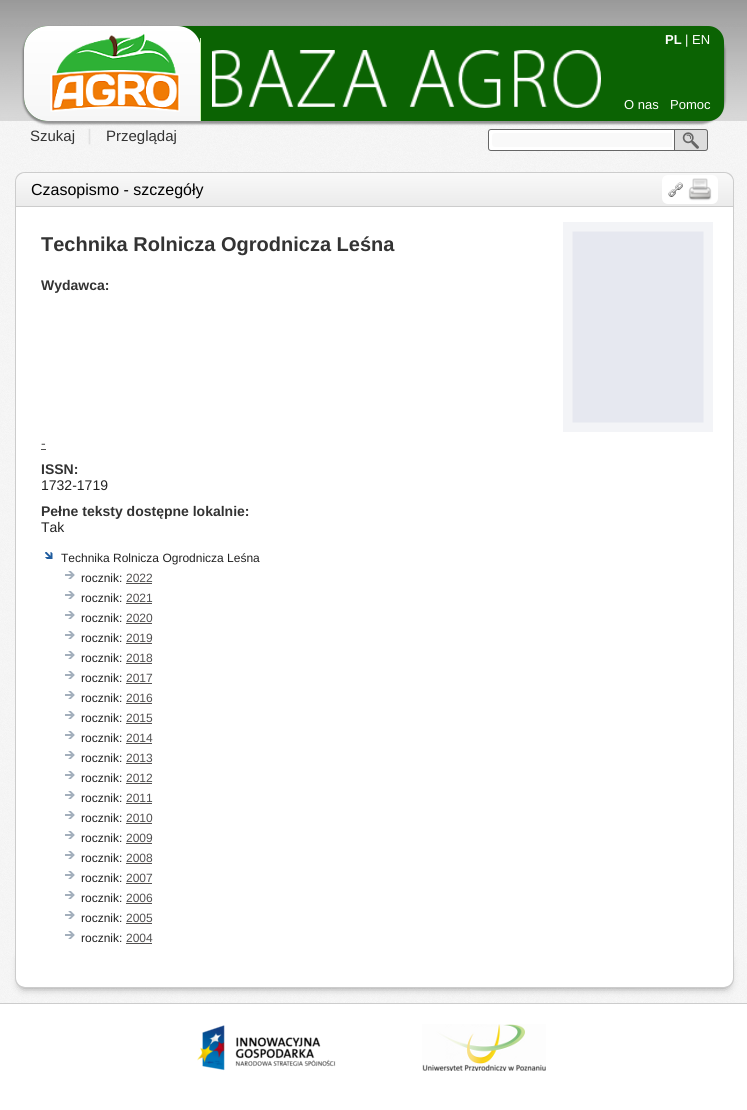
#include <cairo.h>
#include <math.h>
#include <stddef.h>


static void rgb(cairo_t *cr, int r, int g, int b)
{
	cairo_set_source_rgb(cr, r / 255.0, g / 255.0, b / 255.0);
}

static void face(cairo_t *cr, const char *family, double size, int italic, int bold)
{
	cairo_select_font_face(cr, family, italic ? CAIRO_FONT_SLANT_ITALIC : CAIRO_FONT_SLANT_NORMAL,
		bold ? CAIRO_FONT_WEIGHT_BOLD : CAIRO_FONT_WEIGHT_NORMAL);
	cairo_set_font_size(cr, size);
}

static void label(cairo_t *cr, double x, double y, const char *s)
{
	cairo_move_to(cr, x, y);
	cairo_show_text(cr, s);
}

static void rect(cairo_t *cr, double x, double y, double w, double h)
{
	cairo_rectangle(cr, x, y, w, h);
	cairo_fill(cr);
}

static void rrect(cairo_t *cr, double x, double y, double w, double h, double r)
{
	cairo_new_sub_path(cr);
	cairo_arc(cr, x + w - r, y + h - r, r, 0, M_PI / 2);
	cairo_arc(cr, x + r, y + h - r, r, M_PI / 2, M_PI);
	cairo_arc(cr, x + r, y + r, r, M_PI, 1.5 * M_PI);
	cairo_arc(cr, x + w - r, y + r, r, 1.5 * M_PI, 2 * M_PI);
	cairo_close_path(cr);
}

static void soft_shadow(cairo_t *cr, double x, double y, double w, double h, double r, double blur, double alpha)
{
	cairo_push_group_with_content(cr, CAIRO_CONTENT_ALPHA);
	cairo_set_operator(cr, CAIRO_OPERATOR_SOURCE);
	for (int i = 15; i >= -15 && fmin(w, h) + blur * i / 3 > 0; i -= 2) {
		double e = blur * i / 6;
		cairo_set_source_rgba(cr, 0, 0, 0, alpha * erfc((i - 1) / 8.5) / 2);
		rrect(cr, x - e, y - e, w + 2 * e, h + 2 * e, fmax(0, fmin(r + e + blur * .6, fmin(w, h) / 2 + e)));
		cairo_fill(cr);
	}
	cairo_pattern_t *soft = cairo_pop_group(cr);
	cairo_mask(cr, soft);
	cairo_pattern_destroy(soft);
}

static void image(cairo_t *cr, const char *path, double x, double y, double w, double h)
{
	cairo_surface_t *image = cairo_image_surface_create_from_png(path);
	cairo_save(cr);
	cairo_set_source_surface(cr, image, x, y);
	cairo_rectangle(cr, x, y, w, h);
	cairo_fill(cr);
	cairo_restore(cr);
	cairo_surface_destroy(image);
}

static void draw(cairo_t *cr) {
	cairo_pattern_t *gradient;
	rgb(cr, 255, 255, 255);
	cairo_paint(cr);
	image(cr, "image0.png", 0, 0, 747, 1003);
	image(cr, "image3.png", 0, 121, 747, 31);
	rgb(cr, 50, 50, 50);
	soft_shadow(cr, 23, 27, 702, 97, 25, 1, 0.5);
	cairo_save(cr);
	cairo_new_path(cr);
	cairo_move_to(cr, 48, 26);
	cairo_line_to(cr, 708, 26);
	cairo_curve_to(cr, 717, 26, 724, 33, 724, 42);
	cairo_line_to(cr, 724, 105);
	cairo_curve_to(cr, 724, 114, 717, 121, 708, 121);
	cairo_line_to(cr, 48, 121);
	cairo_curve_to(cr, 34.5, 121, 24, 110.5, 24, 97);
	cairo_line_to(cr, 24, 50);
	cairo_curve_to(cr, 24, 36.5, 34.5, 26, 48, 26);
	cairo_close_path(cr);
	cairo_clip(cr);
	soft_shadow(cr, 23, 27, 702, 97, 25, 1, 0.5);
	cairo_restore(cr);
	rgb(cr, 11, 99, 3);
	cairo_new_path(cr);
	cairo_move_to(cr, 48, 26);
	cairo_line_to(cr, 708, 26);
	cairo_curve_to(cr, 717, 26, 724, 33, 724, 42);
	cairo_line_to(cr, 724, 105);
	cairo_curve_to(cr, 724, 114, 717, 121, 708, 121);
	cairo_line_to(cr, 48, 121);
	cairo_curve_to(cr, 34.5, 121, 24, 110.5, 24, 97);
	cairo_line_to(cr, 24, 50);
	cairo_curve_to(cr, 24, 36.5, 34.5, 26, 48, 26);
	cairo_close_path(cr);
	cairo_fill(cr);
	gradient = cairo_pattern_create_linear(112, 26, 112, 121);
	cairo_pattern_add_color_stop_rgba(gradient, 0, 1, 1, 1, 1);
	cairo_pattern_add_color_stop_rgba(gradient, 1, 0.965, 0.965, 0.965, 1);
	cairo_set_source(cr, gradient);
	cairo_pattern_destroy(gradient);
	cairo_new_path(cr);
	cairo_move_to(cr, 48, 26);
	cairo_line_to(cr, 177, 26);
	cairo_curve_to(cr, 190.5, 26, 201, 36.5, 201, 50);
	cairo_line_to(cr, 201, 121);
	cairo_line_to(cr, 48, 121);
	cairo_curve_to(cr, 34.5, 121, 24, 110.5, 24, 97);
	cairo_line_to(cr, 24, 50);
	cairo_curve_to(cr, 24, 36.5, 34.5, 26, 48, 26);
	cairo_close_path(cr);
	cairo_fill(cr);
	rgb(cr, 203, 246, 179);
	rect(cr, 200, 38, 1, 83);
	image(cr, "image1.png", 50, 33, 130, 79);
	face(cr, "Liberation Sans", 13, 0, 1);
	rgb(cr, 255, 255, 255);
	label(cr, 665, 44, "PL");
	face(cr, "Liberation Sans", 13, 0, 0);
	label(cr, 685, 44, "| EN");
	image(cr, "image2.png", 212, 50, 389, 58);
	label(cr, 624, 109, "O nas");
	label(cr, 670, 109, "Pomoc");
	face(cr, "Liberation Sans", 15, 0, 0);
	rgb(cr, 51, 51, 51);
	label(cr, 30, 141, "Szukaj");
	rgb(cr, 100, 100, 100);
	soft_shadow(cr, 89, 129, 1, 15, 0, 0.5, 0.2);
	rgb(cr, 51, 51, 51);
	label(cr, 106, 141, "Przeglądaj");
	rgb(cr, 255, 255, 255);
	cairo_new_path(cr);
	cairo_move_to(cr, 491, 129.5);
	cairo_line_to(cr, 675.5, 129.5);
	cairo_line_to(cr, 675.5, 150.5);
	cairo_line_to(cr, 491, 150.5);
	cairo_curve_to(cr, 489.5, 150.5, 488.5, 149.5, 488.5, 148);
	cairo_line_to(cr, 488.5, 132);
	cairo_curve_to(cr, 488.5, 130.5, 489.5, 129.5, 491, 129.5);
	cairo_close_path(cr);
	cairo_fill_preserve(cr);
	rgb(cr, 102, 102, 102);
	cairo_set_line_width(cr, 1);
	cairo_stroke(cr);
	rgb(cr, 249, 249, 249);
	cairo_new_path(cr);
	cairo_move_to(cr, 495, 133);
	cairo_line_to(cr, 672, 133);
	cairo_line_to(cr, 672, 147);
	cairo_line_to(cr, 495, 147);
	cairo_curve_to(cr, 493.5, 147, 492, 145.5, 492, 144);
	cairo_line_to(cr, 492, 136);
	cairo_curve_to(cr, 492, 134.5, 493.5, 133, 495, 133);
	cairo_close_path(cr);
	cairo_fill(cr);
	rgb(cr, 221, 221, 221);
	cairo_new_path(cr);
	cairo_move_to(cr, 674, 129);
	cairo_line_to(cr, 705, 129);
	cairo_curve_to(cr, 706.5, 129, 708, 130.5, 708, 132);
	cairo_line_to(cr, 708, 148);
	cairo_curve_to(cr, 708, 149.5, 706.5, 151, 705, 151);
	cairo_line_to(cr, 674, 151);
	cairo_close_path(cr);
	cairo_fill(cr);
	image(cr, "image4.png", 682, 132, 17, 17);
	cairo_new_path(cr);
	cairo_move_to(cr, 674.5, 129.5);
	cairo_line_to(cr, 705, 129.5);
	cairo_curve_to(cr, 706.5, 129.5, 707.5, 130.5, 707.5, 132);
	cairo_line_to(cr, 707.5, 148);
	cairo_curve_to(cr, 707.5, 149.5, 706.5, 150.5, 705, 150.5);
	cairo_line_to(cr, 674.5, 150.5);
	cairo_close_path(cr);
	rgb(cr, 102, 102, 102);
	cairo_stroke(cr);
	rgb(cr, 204, 204, 204);
	cairo_set_fill_rule(cr, CAIRO_FILL_RULE_EVEN_ODD);
	cairo_new_path(cr);
	cairo_move_to(cr, 25, 172);
	cairo_line_to(cr, 724, 172);
	cairo_curve_to(cr, 730, 172, 734, 176, 734, 182);
	cairo_line_to(cr, 734, 207);
	cairo_line_to(cr, 15, 207);
	cairo_line_to(cr, 15, 182);
	cairo_curve_to(cr, 15, 176, 19, 172, 25, 172);
	cairo_close_path(cr);
	cairo_move_to(cr, 25, 173);
	cairo_line_to(cr, 724, 173);
	cairo_curve_to(cr, 729, 173, 733, 177, 733, 182);
	cairo_line_to(cr, 733, 207);
	cairo_line_to(cr, 16, 207);
	cairo_line_to(cr, 16, 182);
	cairo_curve_to(cr, 16, 177, 20, 173, 25, 173);
	cairo_close_path(cr);
	cairo_fill(cr);
	gradient = cairo_pattern_create_linear(375, 173, 375, 206);
	cairo_pattern_add_color_stop_rgba(gradient, 0, 0.976, 0.976, 0.976, 1);
	cairo_pattern_add_color_stop_rgba(gradient, 1, 0.922, 0.922, 0.922, 1);
	cairo_set_source(cr, gradient);
	cairo_pattern_destroy(gradient);
	cairo_new_path(cr);
	cairo_move_to(cr, 26, 173);
	cairo_line_to(cr, 723, 173);
	cairo_curve_to(cr, 728.5, 173, 733, 177.5, 733, 183);
	cairo_line_to(cr, 733, 206);
	cairo_line_to(cr, 16, 206);
	cairo_line_to(cr, 16, 183);
	cairo_curve_to(cr, 16, 177.5, 20.5, 173, 26, 173);
	cairo_close_path(cr);
	cairo_fill(cr);
	rgb(cr, 204, 204, 204);
	rect(cr, 16, 206, 717, 1);
	face(cr, "Liberation Sans", 16, 0, 0);
	rgb(cr, 0, 0, 0);
	label(cr, 31, 195, "Czasopismo - szczegóły");
	rgb(cr, 255, 255, 255);
	rrect(cr, 662, 175, 56, 29, 6);
	cairo_fill(cr);
	image(cr, "image5.png", 668, 182, 15, 15);
	image(cr, "image6.png", 688, 178, 24, 23);
	rgb(cr, 0, 0, 0);
	soft_shadow(cr, 23, 960, 703, 25, 0, 5, 0.8);
	rgb(cr, 255, 255, 255);
	cairo_new_path(cr);
	cairo_move_to(cr, 16, 207);
	cairo_line_to(cr, 733, 207);
	cairo_line_to(cr, 733, 978);
	cairo_curve_to(cr, 733, 983, 729, 987, 724, 987);
	cairo_line_to(cr, 25, 987);
	cairo_curve_to(cr, 20, 987, 16, 983, 16, 978);
	cairo_close_path(cr);
	cairo_fill(cr);
	rgb(cr, 204, 204, 204);
	cairo_new_path(cr);
	cairo_move_to(cr, 15, 207);
	cairo_line_to(cr, 734, 207);
	cairo_line_to(cr, 734, 978);
	cairo_curve_to(cr, 734, 984, 730, 988, 724, 988);
	cairo_line_to(cr, 25, 988);
	cairo_curve_to(cr, 19, 988, 15, 984, 15, 978);
	cairo_close_path(cr);
	cairo_move_to(cr, 16, 207);
	cairo_line_to(cr, 733, 207);
	cairo_line_to(cr, 733, 978);
	cairo_curve_to(cr, 733, 983, 729, 987, 724, 987);
	cairo_line_to(cr, 25, 987);
	cairo_curve_to(cr, 20, 987, 16, 983, 16, 978);
	cairo_close_path(cr);
	cairo_fill(cr);
	face(cr, "Liberation Sans", 20, 0, 1);
	rgb(cr, 51, 51, 51);
	label(cr, 41, 251, "Technika Rolnicza Ogrodnicza Leśna");
	image(cr, "image7.png", 563, 222, 150, 210);
	face(cr, "Liberation Sans", 14, 0, 1);
	label(cr, 41, 290, "Wydawca:");
	face(cr, "Liberation Sans", 14, 0, 0);
	rgb(cr, 81, 80, 80);
	label(cr, 41, 448, "-");
	rect(cr, 41, 449, 5, 1);
	face(cr, "Liberation Sans", 14, 0, 1);
	rgb(cr, 51, 51, 51);
	label(cr, 41, 474, "ISSN:");
	face(cr, "Liberation Sans", 14, 0, 0);
	rgb(cr, 34, 34, 34);
	label(cr, 41, 490, "1732-1719");
	face(cr, "Liberation Sans", 14, 0, 1);
	rgb(cr, 51, 51, 51);
	label(cr, 41, 516, "Pełne teksty dostępne lokalnie:");
	face(cr, "Liberation Sans", 14, 0, 0);
	rgb(cr, 34, 34, 34);
	label(cr, 41, 532, "Tak");
	image(cr, "image8.png", 45, 552, 8, 7);
	face(cr, "Liberation Sans", 12, 0, 0);
	label(cr, 61, 562, "Technika Rolnicza Ogrodnicza Leśna");
	image(cr, "image9.png", 65, 571, 10, 8);
	label(cr, 81, 582, "rocznik:");
	rgb(cr, 81, 80, 80);
	label(cr, 126, 582, "2022");
	rect(cr, 126, 583, 26, 1);
	image(cr, "image9.png", 65, 591, 10, 8);
	rgb(cr, 34, 34, 34);
	label(cr, 81, 602, "rocznik:");
	rgb(cr, 81, 80, 80);
	label(cr, 126, 602, "2021");
	rect(cr, 126, 603, 26, 1);
	image(cr, "image9.png", 65, 611, 10, 8);
	rgb(cr, 34, 34, 34);
	label(cr, 81, 622, "rocznik:");
	rgb(cr, 81, 80, 80);
	label(cr, 126, 622, "2020");
	rect(cr, 126, 623, 26, 1);
	image(cr, "image9.png", 65, 631, 10, 8);
	rgb(cr, 34, 34, 34);
	label(cr, 81, 642, "rocznik:");
	rgb(cr, 81, 80, 80);
	label(cr, 126, 642, "2019");
	rect(cr, 126, 643, 26, 1);
	image(cr, "image9.png", 65, 651, 10, 8);
	rgb(cr, 34, 34, 34);
	label(cr, 81, 662, "rocznik:");
	rgb(cr, 81, 80, 80);
	label(cr, 126, 662, "2018");
	rect(cr, 126, 663, 26, 1);
	image(cr, "image9.png", 65, 671, 10, 8);
	rgb(cr, 34, 34, 34);
	label(cr, 81, 682, "rocznik:");
	rgb(cr, 81, 80, 80);
	label(cr, 126, 682, "2017");
	rect(cr, 126, 683, 26, 1);
	image(cr, "image9.png", 65, 691, 10, 8);
	rgb(cr, 34, 34, 34);
	label(cr, 81, 702, "rocznik:");
	rgb(cr, 81, 80, 80);
	label(cr, 126, 702, "2016");
	rect(cr, 126, 703, 26, 1);
	image(cr, "image9.png", 65, 711, 10, 8);
	rgb(cr, 34, 34, 34);
	label(cr, 81, 722, "rocznik:");
	rgb(cr, 81, 80, 80);
	label(cr, 126, 722, "2015");
	rect(cr, 126, 723, 26, 1);
	image(cr, "image9.png", 65, 731, 10, 8);
	rgb(cr, 34, 34, 34);
	label(cr, 81, 742, "rocznik:");
	rgb(cr, 81, 80, 80);
	label(cr, 126, 742, "2014");
	rect(cr, 126, 743, 26, 1);
	image(cr, "image9.png", 65, 751, 10, 8);
	rgb(cr, 34, 34, 34);
	label(cr, 81, 762, "rocznik:");
	rgb(cr, 81, 80, 80);
	label(cr, 126, 762, "2013");
	rect(cr, 126, 763, 26, 1);
	image(cr, "image9.png", 65, 771, 10, 8);
	rgb(cr, 34, 34, 34);
	label(cr, 81, 782, "rocznik:");
	rgb(cr, 81, 80, 80);
	label(cr, 126, 782, "2012");
	rect(cr, 126, 783, 26, 1);
	image(cr, "image9.png", 65, 791, 10, 8);
	rgb(cr, 34, 34, 34);
	label(cr, 81, 802, "rocznik:");
	rgb(cr, 81, 80, 80);
	label(cr, 126, 802, "2011");
	rect(cr, 126, 803, 26, 1);
	image(cr, "image9.png", 65, 811, 10, 8);
	rgb(cr, 34, 34, 34);
	label(cr, 81, 822, "rocznik:");
	rgb(cr, 81, 80, 80);
	label(cr, 126, 822, "2010");
	rect(cr, 126, 823, 26, 1);
	image(cr, "image9.png", 65, 831, 10, 8);
	rgb(cr, 34, 34, 34);
	label(cr, 81, 842, "rocznik:");
	rgb(cr, 81, 80, 80);
	label(cr, 126, 842, "2009");
	rect(cr, 126, 843, 26, 1);
	image(cr, "image9.png", 65, 851, 10, 8);
	rgb(cr, 34, 34, 34);
	label(cr, 81, 862, "rocznik:");
	rgb(cr, 81, 80, 80);
	label(cr, 126, 862, "2008");
	rect(cr, 126, 863, 26, 1);
	image(cr, "image9.png", 65, 871, 10, 8);
	rgb(cr, 34, 34, 34);
	label(cr, 81, 882, "rocznik:");
	rgb(cr, 81, 80, 80);
	label(cr, 126, 882, "2007");
	rect(cr, 126, 883, 26, 1);
	image(cr, "image9.png", 65, 891, 10, 8);
	rgb(cr, 34, 34, 34);
	label(cr, 81, 902, "rocznik:");
	rgb(cr, 81, 80, 80);
	label(cr, 126, 902, "2006");
	rect(cr, 126, 903, 26, 1);
	image(cr, "image9.png", 65, 911, 10, 8);
	rgb(cr, 34, 34, 34);
	label(cr, 81, 922, "rocznik:");
	rgb(cr, 81, 80, 80);
	label(cr, 126, 922, "2005");
	rect(cr, 126, 923, 26, 1);
	image(cr, "image9.png", 65, 931, 10, 8);
	rgb(cr, 34, 34, 34);
	label(cr, 81, 942, "rocznik:");
	rgb(cr, 81, 80, 80);
	label(cr, 126, 942, "2004");
	rect(cr, 126, 943, 26, 1);
	rgb(cr, 204, 204, 204);
	rect(cr, 0, 1003, 747, 1);
	image(cr, "image10.png", 197, 1025, 139, 46);
	image(cr, "image11.png", 422, 1024, 124, 47);
}

int main(void) {
	cairo_surface_t *surface = cairo_image_surface_create(CAIRO_FORMAT_RGB24, 747, 1110);
	cairo_t *cr = cairo_create(surface);
	cairo_font_options_t *options = cairo_font_options_create();
	cairo_font_options_set_hint_metrics(options, CAIRO_HINT_METRICS_OFF);
	cairo_font_options_set_hint_style(options, CAIRO_HINT_STYLE_NONE);
	cairo_set_font_options(cr, options);
	cairo_set_miter_limit(cr, 4);
	draw(cr);
	cairo_surface_write_to_png(surface, "render.png");
	cairo_font_options_destroy(options);
	cairo_destroy(cr);
	cairo_surface_destroy(surface);
	return 0;
}
